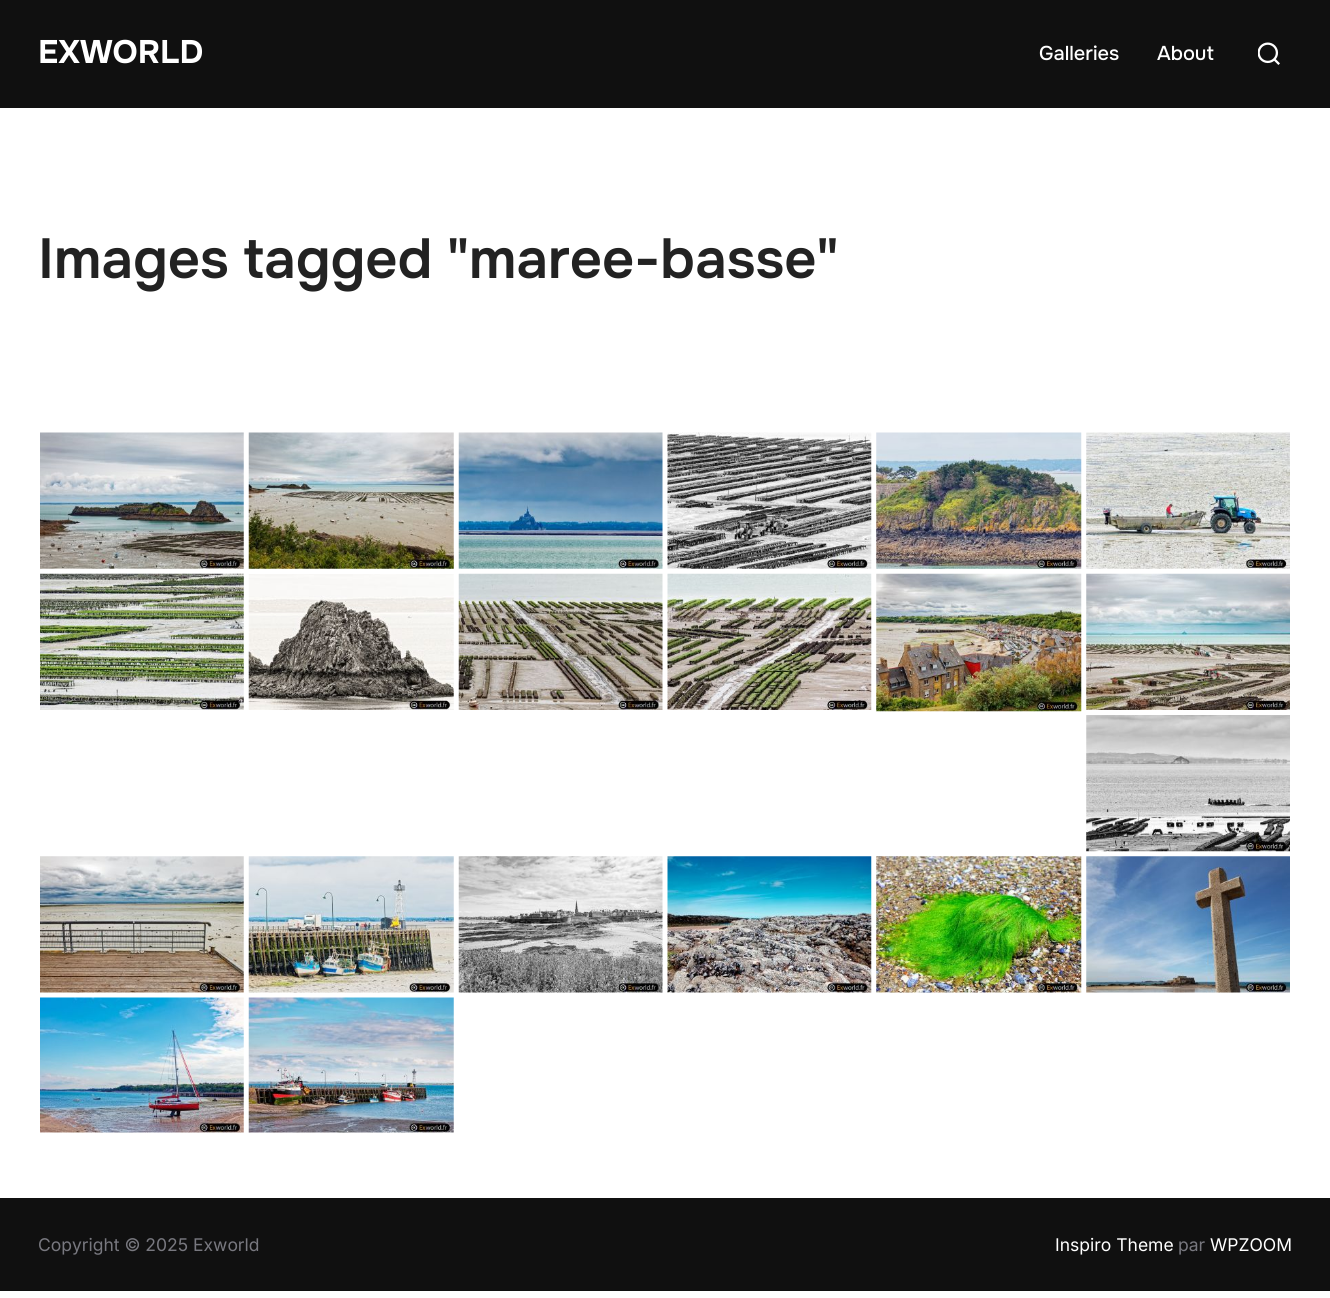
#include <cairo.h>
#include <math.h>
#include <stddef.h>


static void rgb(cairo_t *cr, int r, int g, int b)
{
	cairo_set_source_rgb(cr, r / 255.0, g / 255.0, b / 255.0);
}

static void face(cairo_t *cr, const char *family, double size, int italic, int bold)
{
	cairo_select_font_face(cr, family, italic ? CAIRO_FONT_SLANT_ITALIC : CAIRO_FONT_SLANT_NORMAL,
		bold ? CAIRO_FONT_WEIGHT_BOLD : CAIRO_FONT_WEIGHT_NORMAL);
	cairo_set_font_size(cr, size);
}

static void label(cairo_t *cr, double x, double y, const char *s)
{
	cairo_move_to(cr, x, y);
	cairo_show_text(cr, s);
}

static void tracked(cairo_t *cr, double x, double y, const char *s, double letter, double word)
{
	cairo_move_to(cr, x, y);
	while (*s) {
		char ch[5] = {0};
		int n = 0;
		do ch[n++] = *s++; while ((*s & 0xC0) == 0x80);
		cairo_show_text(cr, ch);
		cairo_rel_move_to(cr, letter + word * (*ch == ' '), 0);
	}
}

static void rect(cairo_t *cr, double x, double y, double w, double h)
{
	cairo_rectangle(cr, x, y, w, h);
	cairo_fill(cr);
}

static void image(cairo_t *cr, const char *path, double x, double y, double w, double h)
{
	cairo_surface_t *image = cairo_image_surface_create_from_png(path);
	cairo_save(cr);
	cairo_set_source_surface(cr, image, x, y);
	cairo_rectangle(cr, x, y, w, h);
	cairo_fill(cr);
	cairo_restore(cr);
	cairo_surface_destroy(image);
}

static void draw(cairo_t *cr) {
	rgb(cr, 255, 255, 255);
	cairo_paint(cr);
	rgb(cr, 16, 16, 16);
	rect(cr, 0, 0, 1330, 108);
	face(cr, "Onest", 32.5, 0, 1);
	rgb(cr, 255, 255, 255);
	label(cr, 38, 63, "EXWORLD");
	face(cr, "Onest Medium", 20, 0, 0);
	label(cr, 1039, 60, "Galleries");
	label(cr, 1157, 60, "About");
	image(cr, "image0.png", 1258, 42, 22, 23);
	face(cr, "Onest SemiBold", 56.25, 0, 0);
	rgb(cr, 34, 34, 34);
	tracked(cr, 38, 278, "Images tagged \"maree-basse\"", 0, -1);
	image(cr, "image1.png", 40, 432, 204, 137);
	image(cr, "image2.png", 248, 432, 206, 137);
	image(cr, "image3.png", 458, 432, 205, 137);
	image(cr, "image4.png", 667, 432, 205, 137);
	image(cr, "image5.png", 876, 432, 206, 137);
	image(cr, "image6.png", 1086, 432, 204, 137);
	image(cr, "image7.png", 40, 573, 204, 137);
	image(cr, "image8.png", 248, 574, 206, 136);
	image(cr, "image9.png", 458, 573, 205, 137);
	image(cr, "image10.png", 667, 573, 205, 137);
	image(cr, "image11.png", 876, 573, 206, 139);
	image(cr, "image12.png", 1086, 573, 204, 137);
	image(cr, "image13.png", 1086, 715, 204, 137);
	image(cr, "image14.png", 40, 856, 204, 137);
	image(cr, "image15.png", 248, 856, 206, 137);
	image(cr, "image16.png", 458, 856, 205, 137);
	image(cr, "image17.png", 667, 856, 205, 137);
	image(cr, "image18.png", 876, 856, 206, 137);
	image(cr, "image19.png", 1086, 856, 204, 137);
	image(cr, "image20.png", 40, 997, 204, 136);
	image(cr, "image21.png", 248, 997, 206, 136);
	rgb(cr, 16, 16, 16);
	rect(cr, 0, 1198, 1330, 93);
	face(cr, "Inter", 17.5, 0, 0);
	rgb(cr, 120, 120, 127);
	label(cr, 38, 1251, "Copyright © 2025 Exworld");
	rgb(cr, 255, 255, 255);
	label(cr, 1055, 1251, "Inspiro Theme");
	rgb(cr, 120, 120, 127);
	label(cr, 1178, 1251, "par");
	rgb(cr, 255, 255, 255);
	label(cr, 1210, 1251, "WPZOOM");
}

int main(void) {
	cairo_surface_t *surface = cairo_image_surface_create(CAIRO_FORMAT_RGB24, 1330, 1298);
	cairo_t *cr = cairo_create(surface);
	cairo_font_options_t *options = cairo_font_options_create();
	cairo_font_options_set_hint_metrics(options, CAIRO_HINT_METRICS_OFF);
	cairo_font_options_set_hint_style(options, CAIRO_HINT_STYLE_NONE);
	cairo_set_font_options(cr, options);
	cairo_set_miter_limit(cr, 4);
	draw(cr);
	cairo_surface_write_to_png(surface, "render.png");
	cairo_font_options_destroy(options);
	cairo_destroy(cr);
	cairo_surface_destroy(surface);
	return 0;
}
